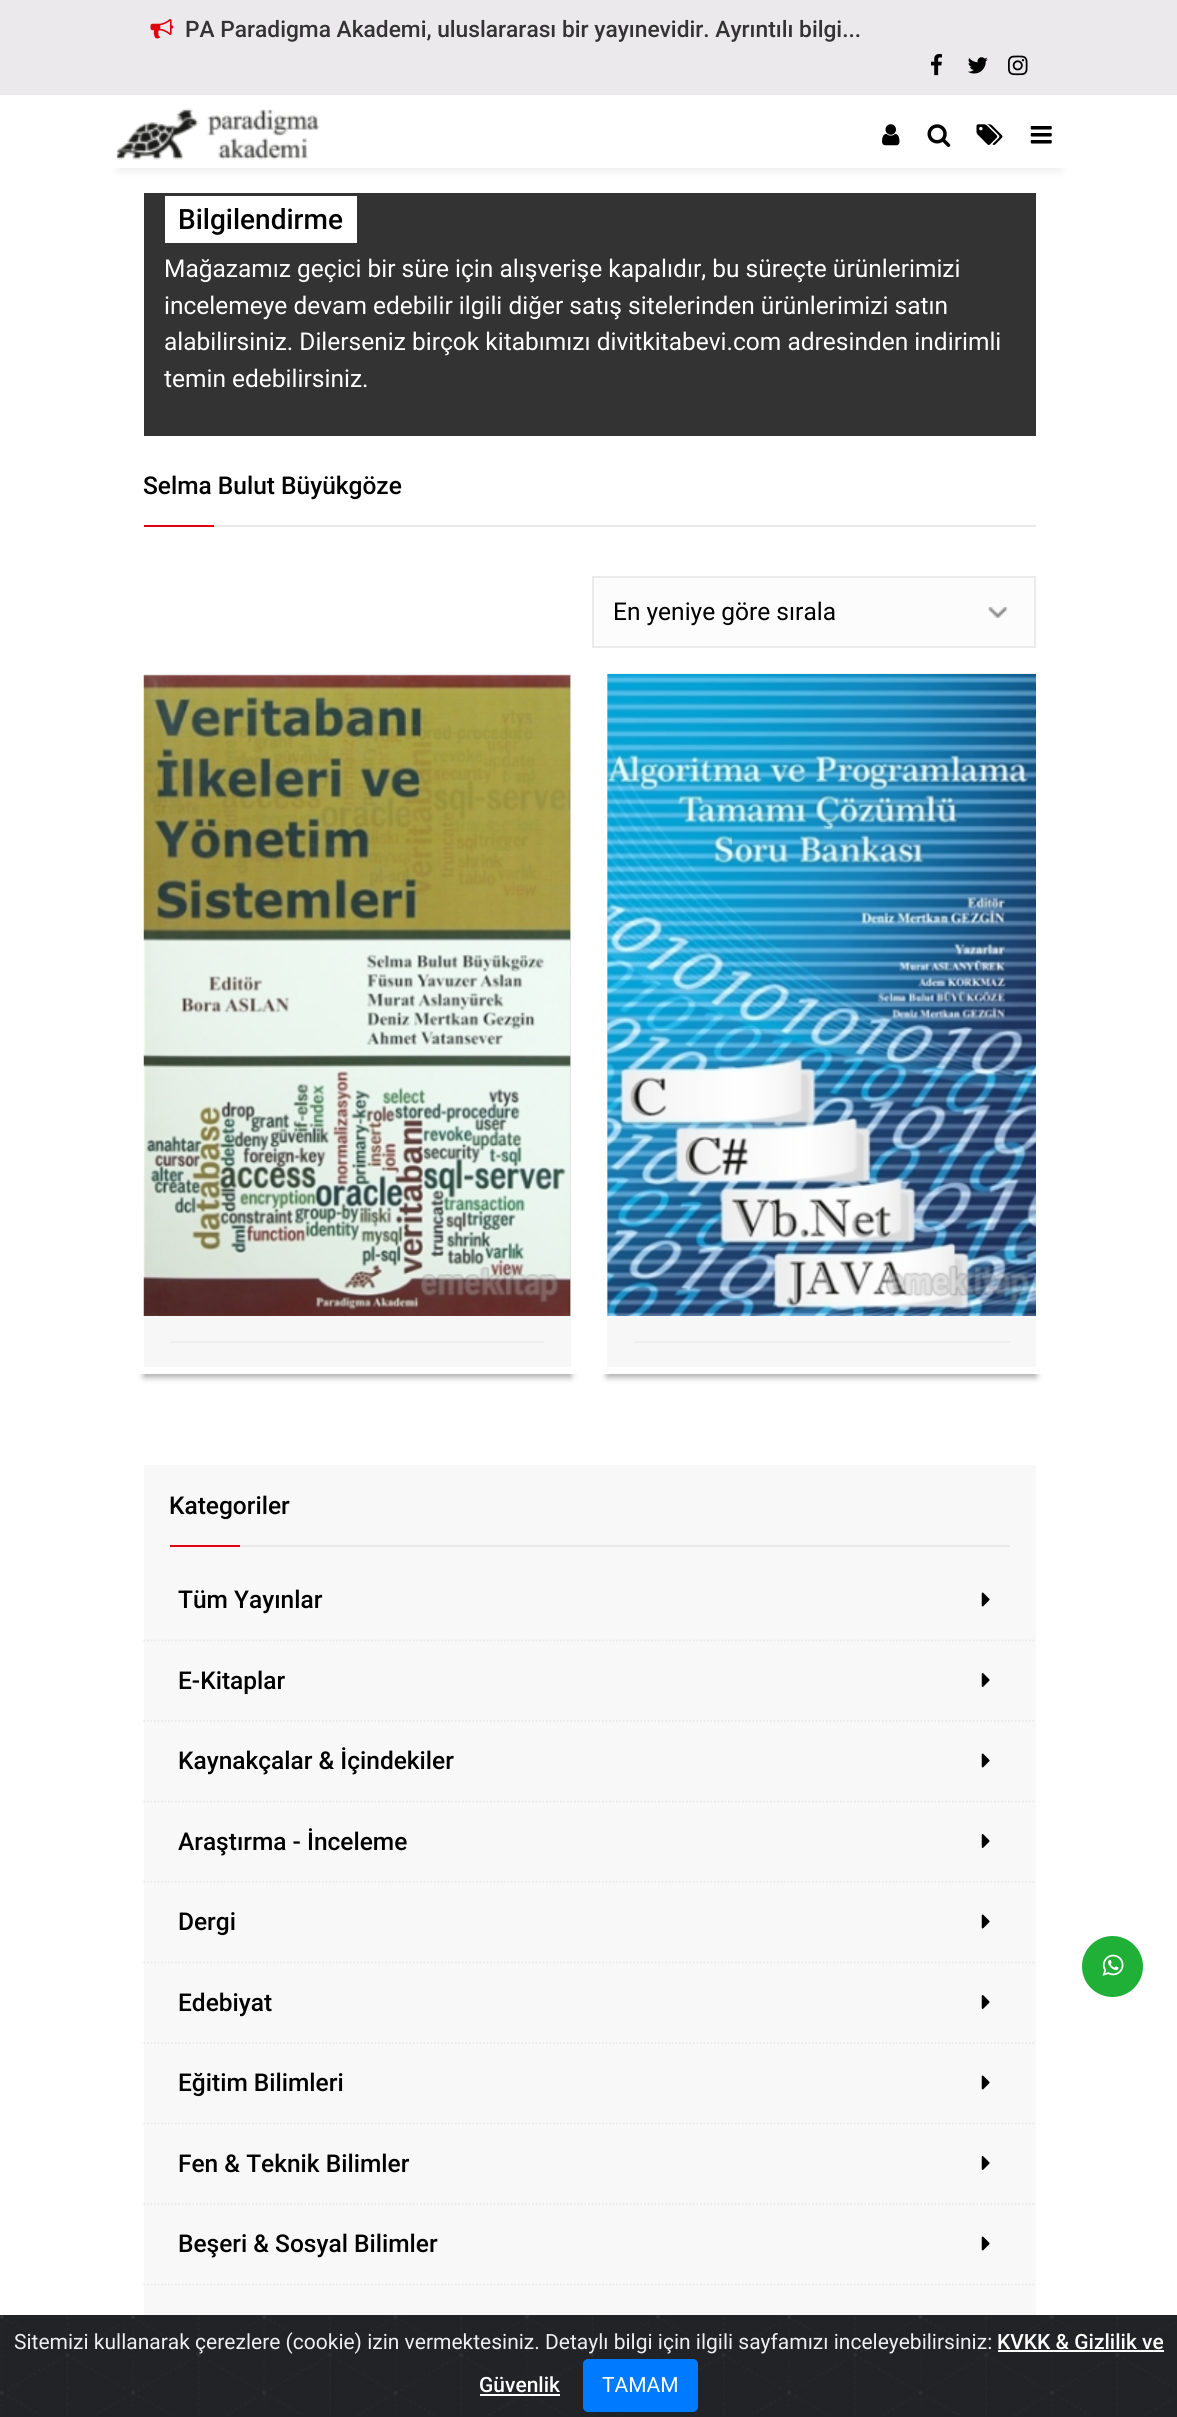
#include <cairo.h>
#include <math.h>
#include <stddef.h>


static void rgb(cairo_t *cr, int r, int g, int b)
{
	cairo_set_source_rgb(cr, r / 255.0, g / 255.0, b / 255.0);
}

static void face(cairo_t *cr, const char *family, double size, int italic, int bold)
{
	cairo_select_font_face(cr, family, italic ? CAIRO_FONT_SLANT_ITALIC : CAIRO_FONT_SLANT_NORMAL,
		bold ? CAIRO_FONT_WEIGHT_BOLD : CAIRO_FONT_WEIGHT_NORMAL);
	cairo_set_font_size(cr, size);
}

static void label(cairo_t *cr, double x, double y, const char *s)
{
	cairo_move_to(cr, x, y);
	cairo_show_text(cr, s);
}

static void rect(cairo_t *cr, double x, double y, double w, double h)
{
	cairo_rectangle(cr, x, y, w, h);
	cairo_fill(cr);
}

static void rrect(cairo_t *cr, double x, double y, double w, double h, double r)
{
	cairo_new_sub_path(cr);
	cairo_arc(cr, x + w - r, y + h - r, r, 0, M_PI / 2);
	cairo_arc(cr, x + r, y + h - r, r, M_PI / 2, M_PI);
	cairo_arc(cr, x + r, y + r, r, M_PI, 1.5 * M_PI);
	cairo_arc(cr, x + w - r, y + r, r, 1.5 * M_PI, 2 * M_PI);
	cairo_close_path(cr);
}

static void soft_shadow(cairo_t *cr, double x, double y, double w, double h, double r, double blur, double alpha)
{
	cairo_push_group_with_content(cr, CAIRO_CONTENT_ALPHA);
	cairo_set_operator(cr, CAIRO_OPERATOR_SOURCE);
	for (int i = 15; i >= -15 && fmin(w, h) + blur * i / 3 > 0; i -= 2) {
		double e = blur * i / 6;
		cairo_set_source_rgba(cr, 0, 0, 0, alpha * erfc((i - 1) / 8.5) / 2);
		rrect(cr, x - e, y - e, w + 2 * e, h + 2 * e, fmax(0, fmin(r + e + blur * .6, fmin(w, h) / 2 + e)));
		cairo_fill(cr);
	}
	cairo_pattern_t *soft = cairo_pop_group(cr);
	cairo_mask(cr, soft);
	cairo_pattern_destroy(soft);
}

static void image(cairo_t *cr, const char *path, double x, double y, double w, double h)
{
	cairo_surface_t *image = cairo_image_surface_create_from_png(path);
	cairo_save(cr);
	cairo_set_source_surface(cr, image, x, y);
	cairo_rectangle(cr, x, y, w, h);
	cairo_fill(cr);
	cairo_restore(cr);
	cairo_surface_destroy(image);
}

static void draw(cairo_t *cr) {
	rgb(cr, 255, 255, 255);
	cairo_paint(cr);
	rgb(cr, 235, 233, 235);
	rect(cr, 0, 0, 1177, 95);
	image(cr, "image0.png", 150, 18, 24, 21);
	face(cr, "Roboto Medium", 22.75, 0, 0);
	rgb(cr, 51, 51, 51);
	label(cr, 185, 37, "PA Paradigma Akademi, uluslararası bir yayınevidir. Ayrıntılı bilgi...");
	image(cr, "image1.png", 931, 54, 11, 22);
	image(cr, "image2.png", 968, 57, 20, 17);
	image(cr, "image3.png", 1008, 55, 20, 21);
	cairo_save(cr);
	cairo_set_fill_rule(cr, CAIRO_FILL_RULE_EVEN_ODD);
	cairo_new_path(cr);
	cairo_move_to(cr, 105, 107);
	cairo_line_to(cr, 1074, 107);
	cairo_line_to(cr, 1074, 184);
	cairo_line_to(cr, 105, 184);
	cairo_close_path(cr);
	cairo_move_to(cr, 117, 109);
	cairo_line_to(cr, 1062, 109);
	cairo_line_to(cr, 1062, 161);
	cairo_line_to(cr, 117, 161);
	cairo_close_path(cr);
	cairo_clip(cr);
	rgb(cr, 240, 240, 240);
	soft_shadow(cr, 117, 119, 945, 53, 0, 3.5, 1);
	cairo_restore(cr);
	cairo_rectangle(cr, 113.5, 105.5, 952, 59);
	rgb(cr, 255, 255, 255);
	cairo_set_line_width(cr, 7);
	cairo_stroke(cr);
	image(cr, "image4.png", 116, 108, 204, 52);
	image(cr, "image5.png", 882, 124, 18, 22);
	image(cr, "image6.png", 927, 124, 24, 23);
	image(cr, "image7.png", 976, 124, 27, 21);
	image(cr, "image8.png", 1030, 126, 22, 18);
	rgb(cr, 51, 51, 51);
	rect(cr, 144, 193, 892, 243);
	rgb(cr, 255, 255, 255);
	rect(cr, 165, 196, 192, 47);
	face(cr, "Roboto Medium", 28, 0, 0);
	rgb(cr, 0, 0, 0);
	label(cr, 178, 229, "Bilgilendirme");
	face(cr, "Roboto", 24.5, 0, 0);
	rgb(cr, 255, 255, 255);
	label(cr, 164, 277, "Mağazamız geçici bir süre için alışverişe kapalıdır, bu süreçte ürünlerimizi");
	label(cr, 164, 314, "incelemeye devam edebilir ilgili diğer satış sitelerinden ürünlerimizi satın");
	label(cr, 164, 350, "alabilirsiniz. Dilerseniz birçok kitabımızı divitkitabevi.com adresinden indirimli");
	label(cr, 164, 387, "temin edebilirsiniz.");
	face(cr, "Roboto Medium", 24.5, 0, 0);
	rgb(cr, 0, 0, 0);
	label(cr, 143, 494, "Selma Bulut Büyükgöze");
	rgb(cr, 227, 0, 15);
	rect(cr, 144, 525, 70, 2);
	rgb(cr, 235, 233, 235);
	rect(cr, 214, 525, 822, 2);
	rgb(cr, 252, 252, 252);
	rect(cr, 594, 578, 440, 68);
	image(cr, "image9.png", 988, 607, 20, 11);
	cairo_rectangle(cr, 593, 577, 442, 70);
	rgb(cr, 235, 235, 235);
	cairo_set_line_width(cr, 2);
	cairo_stroke(cr);
	face(cr, "Roboto", 24.5, 0, 0);
	rgb(cr, 0, 0, 0);
	label(cr, 613, 620, "En yeniye göre sırala");
	rgb(cr, 165, 165, 165);
	soft_shadow(cr, 144, 684, 427, 693, 0, 3.5, 1);
	cairo_rectangle(cr, 140.5, 670.5, 434, 700);
	rgb(cr, 255, 255, 255);
	cairo_set_line_width(cr, 7);
	cairo_stroke(cr);
	rgb(cr, 247, 247, 247);
	rect(cr, 144, 674, 427, 693);
	rgb(cr, 238, 238, 238);
	rect(cr, 170, 1341, 374, 2);
	cairo_save(cr);
	cairo_rectangle(cr, 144, 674, 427, 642);
	cairo_clip(cr);
	rgb(cr, 0, 0, 0);
	soft_shadow(cr, 144, 674, 427, 642, 0, 12, 0.2);
	cairo_restore(cr);
	image(cr, "image10.png", 143, 674, 428, 642);
	rgb(cr, 165, 165, 165);
	soft_shadow(cr, 607, 684, 429, 693, 0, 3.5, 1);
	cairo_rectangle(cr, 603.5, 670.5, 436, 700);
	rgb(cr, 255, 255, 255);
	cairo_stroke(cr);
	rgb(cr, 247, 247, 247);
	rect(cr, 607, 674, 429, 693);
	rgb(cr, 238, 238, 238);
	rect(cr, 634, 1341, 376, 2);
	cairo_save(cr);
	cairo_rectangle(cr, 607, 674, 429, 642);
	cairo_clip(cr);
	rgb(cr, 0, 0, 0);
	soft_shadow(cr, 607, 674, 429, 642, 0, 12, 0.2);
	cairo_restore(cr);
	image(cr, "image11.png", 607, 673, 429, 643);
	rgb(cr, 248, 248, 248);
	rect(cr, 144, 1465, 892, 850);
	face(cr, "Roboto Medium", 24.5, 0, 0);
	rgb(cr, 0, 0, 0);
	label(cr, 169, 1514, "Kategoriler");
	rgb(cr, 227, 0, 15);
	rect(cr, 170, 1545, 70, 2);
	rgb(cr, 235, 233, 235);
	rect(cr, 240, 1545, 770, 2);
	cairo_new_path(cr);
	cairo_move_to(cr, 143.5, 1640.5);
	cairo_line_to(cr, 1036, 1640.5);
	cairo_set_line_width(cr, 1.8);
	cairo_set_dash(cr, (double[]){1.75, 1.75}, 2, 0);
	cairo_stroke(cr);
	rgb(cr, 0, 0, 0);
	label(cr, 178, 1608, "Tüm Yayınlar");
	image(cr, "image12.png", 981, 1592, 9, 15);
	cairo_new_path(cr);
	cairo_move_to(cr, 143.5, 1721);
	cairo_line_to(cr, 1036, 1721);
	rgb(cr, 235, 233, 235);
	cairo_stroke(cr);
	rgb(cr, 0, 0, 0);
	label(cr, 178, 1689, "E-Kitaplar");
	image(cr, "image13.png", 981, 1673, 9, 14);
	cairo_new_path(cr);
	cairo_move_to(cr, 143.5, 1801.5);
	cairo_line_to(cr, 1036, 1801.5);
	rgb(cr, 235, 233, 235);
	cairo_stroke(cr);
	rgb(cr, 0, 0, 0);
	label(cr, 178, 1769, "Kaynakçalar & İçindekiler");
	image(cr, "image12.png", 981, 1753, 9, 15);
	cairo_new_path(cr);
	cairo_move_to(cr, 143.5, 1882);
	cairo_line_to(cr, 1036, 1882);
	rgb(cr, 235, 233, 235);
	cairo_stroke(cr);
	rgb(cr, 0, 0, 0);
	label(cr, 178, 1850, "Araştırma - İnceleme");
	image(cr, "image13.png", 981, 1834, 9, 14);
	cairo_new_path(cr);
	cairo_move_to(cr, 143.5, 1962.5);
	cairo_line_to(cr, 1036, 1962.5);
	rgb(cr, 235, 233, 235);
	cairo_stroke(cr);
	rgb(cr, 0, 0, 0);
	label(cr, 178, 1930, "Dergi");
	image(cr, "image12.png", 981, 1914, 9, 15);
	cairo_new_path(cr);
	cairo_move_to(cr, 143.5, 2043);
	cairo_line_to(cr, 1036, 2043);
	rgb(cr, 235, 233, 235);
	cairo_stroke(cr);
	rgb(cr, 0, 0, 0);
	label(cr, 178, 2011, "Edebiyat");
	image(cr, "image13.png", 981, 1995, 9, 14);
	cairo_new_path(cr);
	cairo_move_to(cr, 143.5, 2123.5);
	cairo_line_to(cr, 1036, 2123.5);
	rgb(cr, 235, 233, 235);
	cairo_stroke(cr);
	rgb(cr, 0, 0, 0);
	label(cr, 178, 2091, "Eğitim Bilimleri");
	image(cr, "image12.png", 981, 2075, 9, 15);
	cairo_new_path(cr);
	cairo_move_to(cr, 143.5, 2204);
	cairo_line_to(cr, 1036, 2204);
	rgb(cr, 235, 233, 235);
	cairo_stroke(cr);
	rgb(cr, 0, 0, 0);
	label(cr, 178, 2172, "Fen & Teknik Bilimler");
	image(cr, "image13.png", 981, 2156, 9, 14);
	cairo_new_path(cr);
	cairo_move_to(cr, 143.5, 2284.5);
	cairo_line_to(cr, 1036, 2284.5);
	rgb(cr, 235, 233, 235);
	cairo_stroke(cr);
	rgb(cr, 0, 0, 0);
	label(cr, 178, 2252, "Beşeri & Sosyal Bilimler");
	image(cr, "image12.png", 981, 2236, 9, 15);
	rgb(cr, 32, 176, 56);
	cairo_arc(cr, 1112.5, 1966.5, 30.5, 0, 2 * M_PI);
	cairo_fill(cr);
	image(cr, "image14.png", 1102, 1954, 22, 22);
	rgb(cr, 33, 35, 39);
	rect(cr, 0, 2315, 1177, 102);
	image(cr, "image15.png", 0, 2315, 1174, 100);
	face(cr, "Roboto", 21, 0, 0);
	rgb(cr, 236, 240, 241);
	label(cr, 14, 2349, "Sitemizi kullanarak çerezlere (cookie) izin vermektesiniz. Detaylı bilgi için ilgili sayfamızı inceleyebilirsiniz:");
	face(cr, "Roboto Medium", 21, 0, 0);
	rgb(cr, 255, 255, 255);
	label(cr, 997, 2349, "KVKK & Gizlilik ve");
	rect(cr, 998, 2350, 166, 2);
	label(cr, 479, 2392, "Güvenlik");
	rect(cr, 480, 2394, 80, 2);
	rgb(cr, 0, 123, 255);
	rrect(cr, 584, 2360, 113, 51, 4);
	cairo_fill_preserve(cr);
	cairo_set_line_width(cr, 2);
	cairo_set_dash(cr, NULL, 0, 0);
	cairo_stroke(cr);
	face(cr, "Roboto", 21, 0, 0);
	rgb(cr, 255, 255, 255);
	label(cr, 602, 2392, "TAMAM");
}

int main(void) {
	cairo_surface_t *surface = cairo_image_surface_create(CAIRO_FORMAT_RGB24, 1177, 2417);
	cairo_t *cr = cairo_create(surface);
	cairo_font_options_t *options = cairo_font_options_create();
	cairo_font_options_set_hint_metrics(options, CAIRO_HINT_METRICS_OFF);
	cairo_font_options_set_hint_style(options, CAIRO_HINT_STYLE_NONE);
	cairo_set_font_options(cr, options);
	cairo_set_miter_limit(cr, 4);
	draw(cr);
	cairo_surface_write_to_png(surface, "render.png");
	cairo_font_options_destroy(options);
	cairo_destroy(cr);
	cairo_surface_destroy(surface);
	return 0;
}
